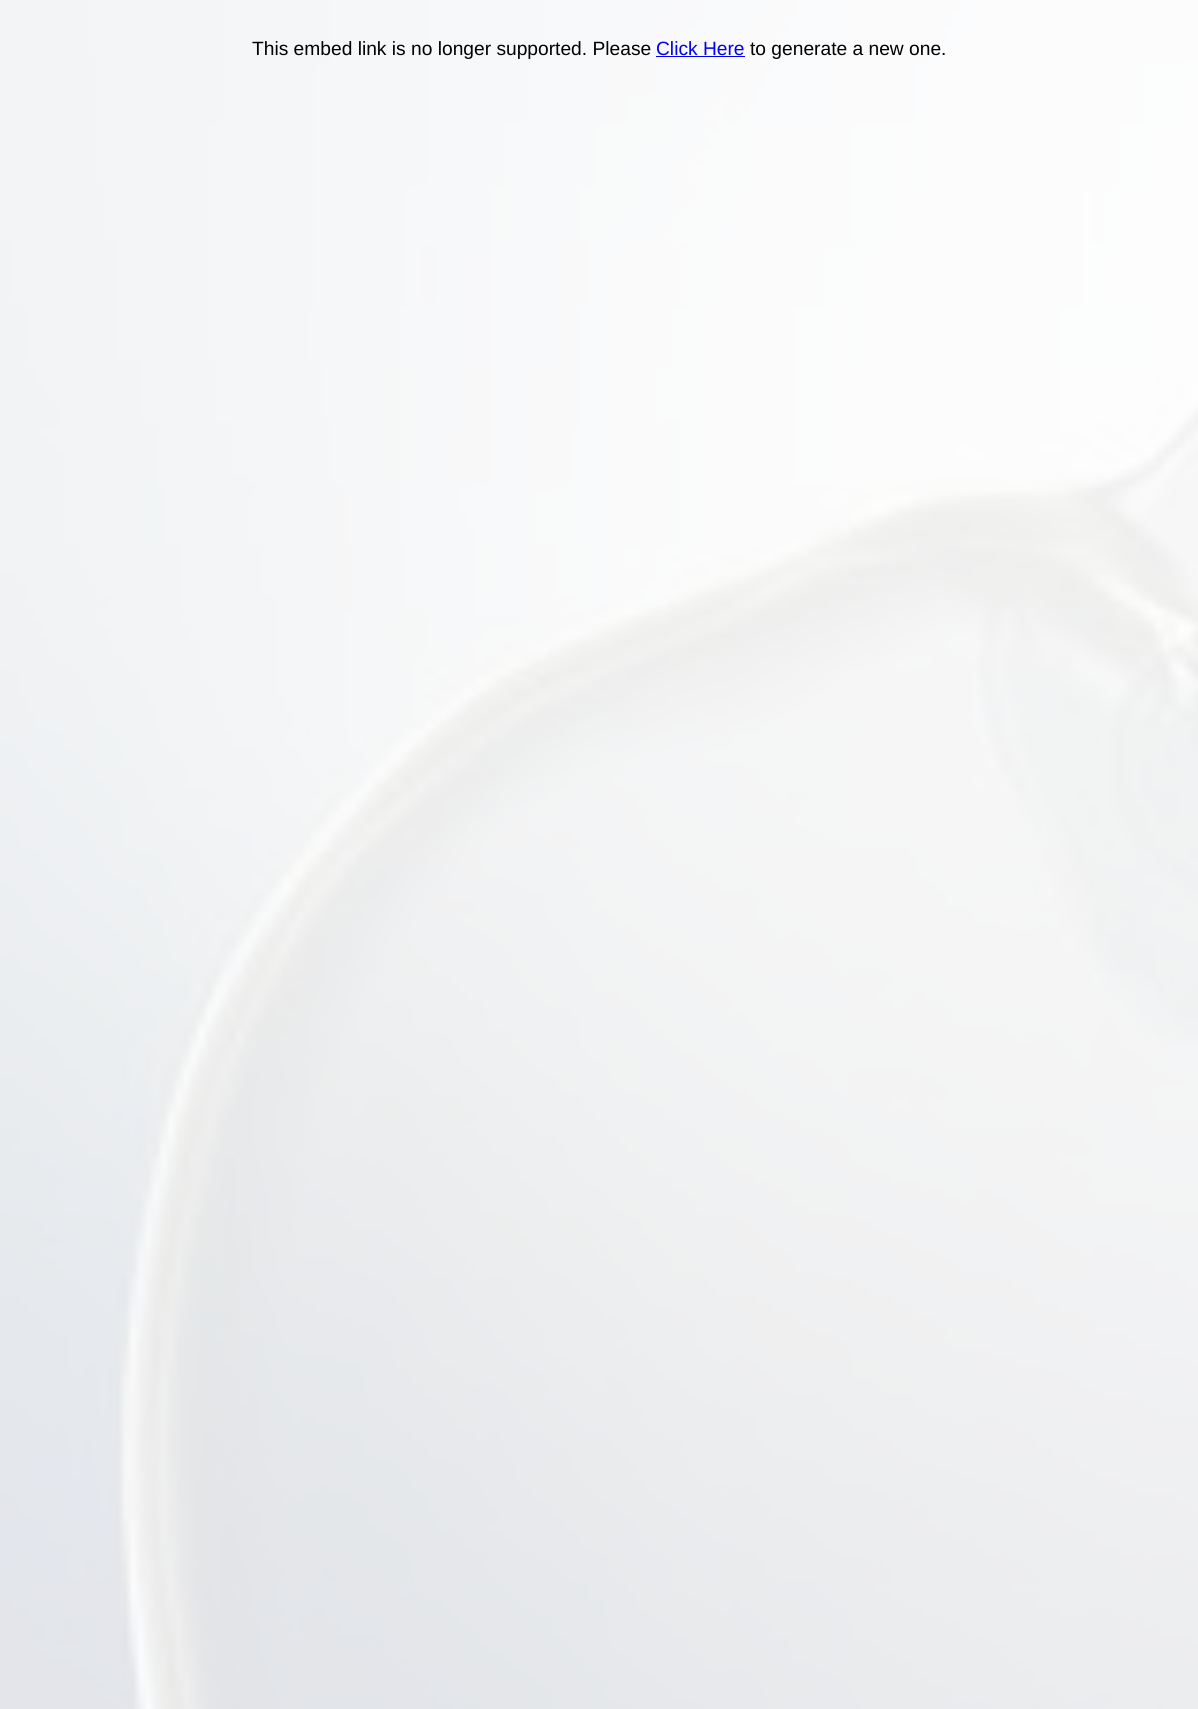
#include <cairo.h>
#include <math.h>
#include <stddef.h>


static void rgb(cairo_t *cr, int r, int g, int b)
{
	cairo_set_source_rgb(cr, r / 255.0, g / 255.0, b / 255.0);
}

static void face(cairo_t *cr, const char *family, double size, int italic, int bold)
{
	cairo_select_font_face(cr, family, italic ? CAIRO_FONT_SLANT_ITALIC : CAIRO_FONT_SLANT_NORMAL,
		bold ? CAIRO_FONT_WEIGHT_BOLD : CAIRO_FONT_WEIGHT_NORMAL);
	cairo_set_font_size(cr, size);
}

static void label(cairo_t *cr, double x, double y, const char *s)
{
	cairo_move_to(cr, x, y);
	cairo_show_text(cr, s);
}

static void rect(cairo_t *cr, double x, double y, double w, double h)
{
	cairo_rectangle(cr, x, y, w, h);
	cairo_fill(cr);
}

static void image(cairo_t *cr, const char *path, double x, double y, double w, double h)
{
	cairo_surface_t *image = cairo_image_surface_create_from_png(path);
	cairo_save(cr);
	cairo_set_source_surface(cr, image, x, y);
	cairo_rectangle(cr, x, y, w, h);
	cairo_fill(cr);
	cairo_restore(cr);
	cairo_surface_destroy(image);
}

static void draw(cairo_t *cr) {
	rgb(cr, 255, 255, 255);
	cairo_paint(cr);
	image(cr, "image0.png", 0, 0, 1198, 1709);
	face(cr, "Liberation Sans", 19.2, 0, 0);
	rgb(cr, 0, 0, 0);
	label(cr, 252, 55, "This embed link is no longer supported. Please");
	rgb(cr, 0, 0, 238);
	label(cr, 656, 55, "Click Here");
	rect(cr, 656, 56, 89, 1);
	rgb(cr, 0, 0, 0);
	label(cr, 750, 55, "to generate a new one.");
}

int main(void) {
	cairo_surface_t *surface = cairo_image_surface_create(CAIRO_FORMAT_RGB24, 1198, 1709);
	cairo_t *cr = cairo_create(surface);
	cairo_font_options_t *options = cairo_font_options_create();
	cairo_font_options_set_hint_metrics(options, CAIRO_HINT_METRICS_OFF);
	cairo_font_options_set_hint_style(options, CAIRO_HINT_STYLE_NONE);
	cairo_set_font_options(cr, options);
	cairo_set_miter_limit(cr, 4);
	draw(cr);
	cairo_surface_write_to_png(surface, "render.png");
	cairo_font_options_destroy(options);
	cairo_destroy(cr);
	cairo_surface_destroy(surface);
	return 0;
}
